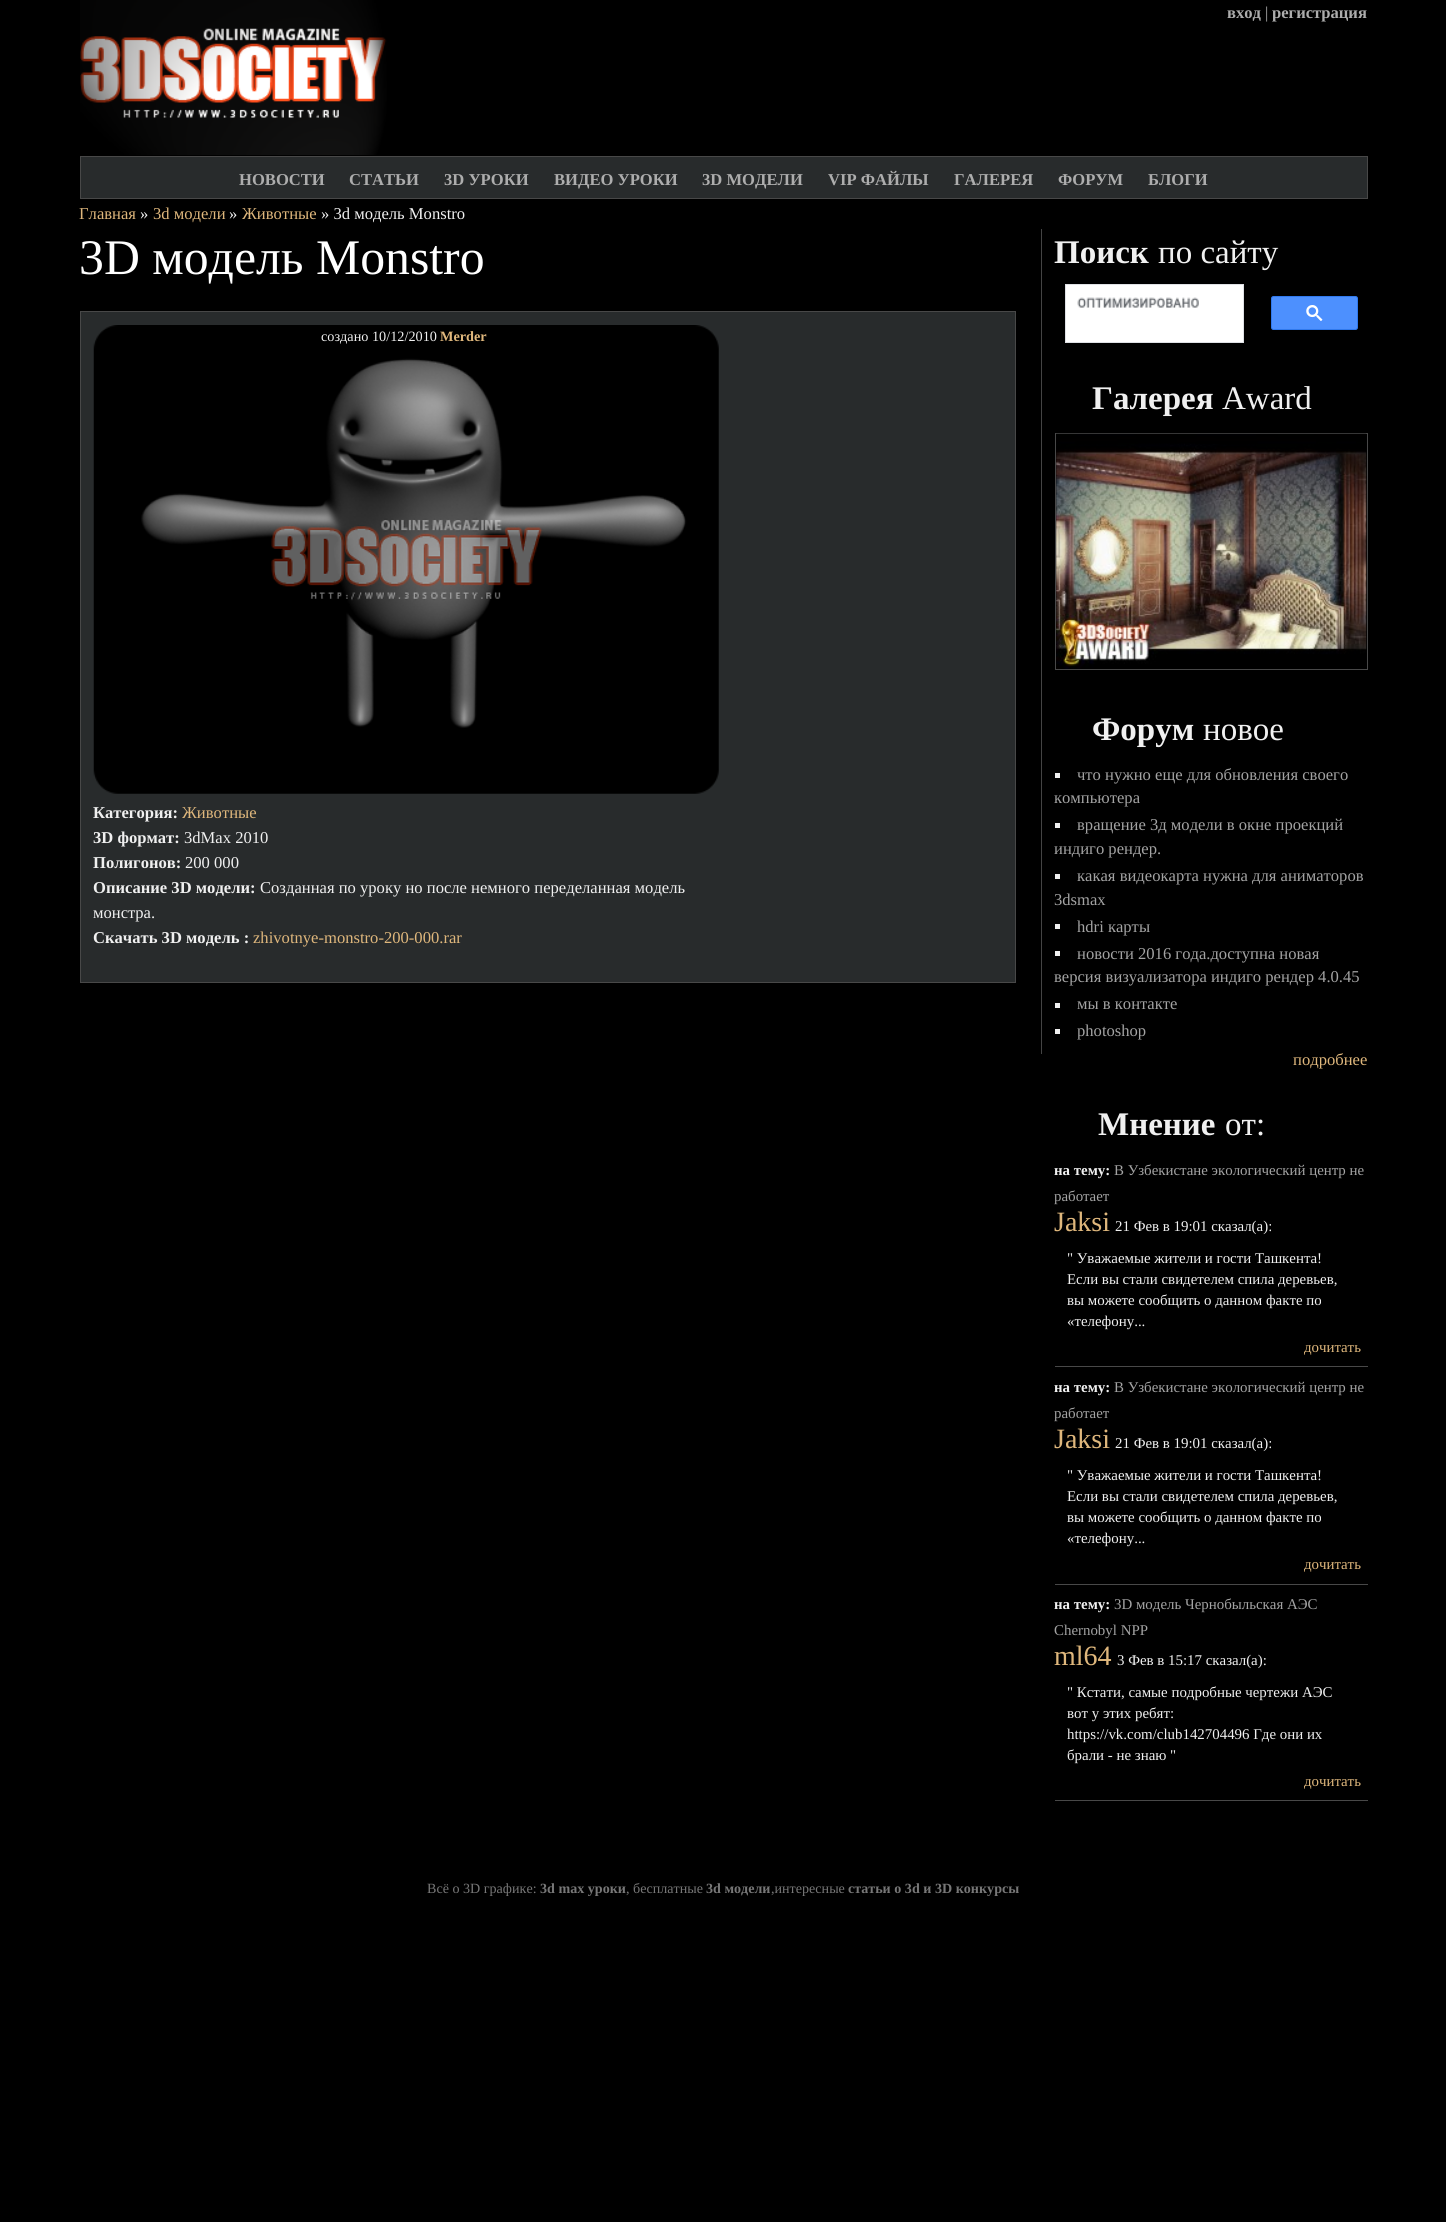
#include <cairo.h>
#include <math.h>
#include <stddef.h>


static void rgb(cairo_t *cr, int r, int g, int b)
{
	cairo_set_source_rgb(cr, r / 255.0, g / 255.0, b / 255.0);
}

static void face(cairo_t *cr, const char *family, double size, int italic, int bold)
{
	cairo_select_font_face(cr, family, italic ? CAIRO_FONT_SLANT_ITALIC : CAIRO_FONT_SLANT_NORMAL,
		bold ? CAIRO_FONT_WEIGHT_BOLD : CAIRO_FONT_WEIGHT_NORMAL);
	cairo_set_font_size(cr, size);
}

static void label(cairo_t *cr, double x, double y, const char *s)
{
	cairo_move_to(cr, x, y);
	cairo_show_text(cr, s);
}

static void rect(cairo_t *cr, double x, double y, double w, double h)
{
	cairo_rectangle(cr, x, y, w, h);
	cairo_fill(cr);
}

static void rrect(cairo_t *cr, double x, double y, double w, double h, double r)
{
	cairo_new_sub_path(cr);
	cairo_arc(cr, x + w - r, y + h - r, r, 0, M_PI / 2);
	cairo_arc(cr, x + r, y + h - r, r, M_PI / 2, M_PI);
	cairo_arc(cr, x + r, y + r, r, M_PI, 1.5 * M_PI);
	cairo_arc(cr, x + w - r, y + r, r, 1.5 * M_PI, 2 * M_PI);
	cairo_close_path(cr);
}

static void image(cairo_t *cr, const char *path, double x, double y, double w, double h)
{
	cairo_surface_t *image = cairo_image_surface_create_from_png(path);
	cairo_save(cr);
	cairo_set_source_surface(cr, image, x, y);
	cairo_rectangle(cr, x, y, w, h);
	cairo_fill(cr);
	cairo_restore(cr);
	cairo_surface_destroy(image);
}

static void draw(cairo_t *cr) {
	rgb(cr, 0, 0, 0);
	cairo_paint(cr);
	image(cr, "image0.png", 80, 0, 307, 155);
	face(cr, "Liberation Serif", 16.6, 0, 1);
	rgb(cr, 173, 173, 173);
	label(cr, 1227, 18, "вход");
	face(cr, "Liberation Serif", 16.6, 0, 0);
	label(cr, 1265, 18, "|");
	face(cr, "Liberation Serif", 16.6, 0, 1);
	label(cr, 1272, 18, "регистрация");
	rgb(cr, 40, 43, 44);
	cairo_rectangle(cr, 80.5, 156.5, 1287, 42);
	cairo_fill_preserve(cr);
	rgb(cr, 72, 72, 72);
	cairo_set_line_width(cr, 1);
	cairo_stroke(cr);
	rgb(cr, 173, 173, 173);
	label(cr, 239, 185, "НОВОСТИ");
	label(cr, 349, 185, "СТАТЬИ");
	label(cr, 444, 185, "3D УРОКИ");
	label(cr, 554, 185, "ВИДЕО УРОКИ");
	label(cr, 702, 185, "3D МОДЕЛИ");
	label(cr, 828, 185, "VIP ФАЙЛЫ");
	label(cr, 954, 185, "ГАЛЕРЕЯ");
	label(cr, 1058, 185, "ФОРУМ");
	label(cr, 1148, 185, "БЛОГИ");
	face(cr, "Liberation Serif", 16.6, 0, 0);
	rgb(cr, 223, 183, 124);
	label(cr, 79, 219, "Главная");
	rgb(cr, 240, 240, 240);
	label(cr, 140, 219, "»");
	rgb(cr, 223, 183, 124);
	label(cr, 153, 219, "3d модели");
	rgb(cr, 240, 240, 240);
	label(cr, 229, 219, "»");
	rgb(cr, 223, 183, 124);
	label(cr, 242, 219, "Животные");
	rgb(cr, 240, 240, 240);
	label(cr, 321, 219, "» 3d модель Monstro");
	rgb(cr, 68, 68, 68);
	rect(cr, 1041, 229, 1, 825);
	face(cr, "Liberation Serif", 49.75, 0, 0);
	rgb(cr, 255, 255, 255);
	label(cr, 79, 274, "3D модель Monstro");
	rgb(cr, 40, 43, 44);
	cairo_rectangle(cr, 80.5, 311.5, 935, 671);
	cairo_fill_preserve(cr);
	rgb(cr, 72, 72, 72);
	cairo_stroke(cr);
	image(cr, "image1.png", 93, 325, 626, 469);
	face(cr, "Liberation Serif", 14.25, 0, 0);
	rgb(cr, 240, 240, 240);
	label(cr, 321, 341, "создано 10/12/2010");
	face(cr, "Liberation Serif", 14.25, 0, 1);
	rgb(cr, 223, 183, 124);
	label(cr, 440, 341, "Merder");
	face(cr, "Liberation Serif", 16.6, 0, 1);
	rgb(cr, 240, 240, 240);
	label(cr, 93, 818, "Категория:");
	face(cr, "Liberation Serif", 16.6, 0, 0);
	rgb(cr, 223, 183, 124);
	label(cr, 182, 818, "Животные");
	face(cr, "Liberation Serif", 16.6, 0, 1);
	rgb(cr, 240, 240, 240);
	label(cr, 93, 843, "3D формат:");
	face(cr, "Liberation Serif", 16.6, 0, 0);
	label(cr, 184, 843, "3dMax 2010");
	face(cr, "Liberation Serif", 16.6, 0, 1);
	label(cr, 93, 868, "Полигонов:");
	face(cr, "Liberation Serif", 16.6, 0, 0);
	label(cr, 185, 868, "200 000");
	face(cr, "Liberation Serif", 16.6, 0, 1);
	label(cr, 93, 893, "Описание 3D модели:");
	face(cr, "Liberation Serif", 16.6, 0, 0);
	label(cr, 260, 893, "Созданная по уроку но после немного переделанная модель");
	label(cr, 93, 918, "монстра.");
	face(cr, "Liberation Serif", 16.6, 0, 1);
	label(cr, 93, 943, "Скачать 3D модель :");
	face(cr, "Liberation Serif", 16.6, 0, 0);
	rgb(cr, 223, 183, 124);
	label(cr, 253, 943, "zhivotnye-monstro-200-000.rar");
	face(cr, "Liberation Serif", 33, 0, 1);
	rgb(cr, 240, 240, 240);
	label(cr, 1054, 263, "Поиск");
	face(cr, "Liberation Serif", 33, 0, 0);
	label(cr, 1158, 263, "по сайту");
	rgb(cr, 255, 255, 255);
	cairo_rectangle(cr, 1065.5, 284.5, 178, 58);
	cairo_fill_preserve(cr);
	rgb(cr, 223, 225, 229);
	cairo_stroke(cr);
	image(cr, "image2.png", 1077, 297, 122, 11);
	rgb(cr, 77, 144, 254);
	rrect(cr, 1271.5, 296.5, 86, 33, 2);
	cairo_fill_preserve(cr);
	rgb(cr, 48, 121, 237);
	cairo_stroke(cr);
	image(cr, "image3.png", 1306, 305, 17, 16);
	face(cr, "Liberation Serif", 33, 0, 1);
	rgb(cr, 240, 240, 240);
	label(cr, 1092, 409, "Галерея");
	face(cr, "Liberation Serif", 33, 0, 0);
	label(cr, 1222, 409, "Award");
	cairo_rectangle(cr, 1055.5, 433.5, 312, 236);
	rgb(cr, 72, 72, 72);
	cairo_stroke(cr);
	image(cr, "image4.png", 1056, 433, 311, 236);
	face(cr, "Liberation Serif", 33, 0, 1);
	rgb(cr, 240, 240, 240);
	label(cr, 1092, 740, "Форум");
	face(cr, "Liberation Serif", 33, 0, 0);
	label(cr, 1203, 740, "новое");
	rect(cr, 1055, 773, 5, 5);
	face(cr, "Liberation Serif", 16.6, 0, 0);
	rgb(cr, 163, 163, 163);
	label(cr, 1077, 780, "что нужно еще для обновления своего");
	label(cr, 1054, 803, "компьютера");
	rgb(cr, 240, 240, 240);
	rect(cr, 1055, 823, 5, 5);
	rgb(cr, 163, 163, 163);
	label(cr, 1077, 830, "вращение 3д модели в окне проекций");
	label(cr, 1054, 854, "индиго рендер.");
	rgb(cr, 240, 240, 240);
	rect(cr, 1055, 874, 5, 5);
	rgb(cr, 163, 163, 163);
	label(cr, 1077, 881, "какая видеокарта нужна для аниматоров");
	label(cr, 1054, 905, "3dsmax");
	rgb(cr, 240, 240, 240);
	rect(cr, 1055, 924, 5, 5);
	rgb(cr, 163, 163, 163);
	label(cr, 1077, 932, "hdri карты");
	rgb(cr, 240, 240, 240);
	rect(cr, 1055, 951, 5, 5);
	rgb(cr, 163, 163, 163);
	label(cr, 1077, 959, "новости 2016 года.доступна новая");
	label(cr, 1054, 982, "версия визуализатора индиго рендер 4.0.45");
	rgb(cr, 240, 240, 240);
	rect(cr, 1055, 1003, 5, 5);
	rgb(cr, 163, 163, 163);
	label(cr, 1077, 1009, "мы в контакте");
	rgb(cr, 240, 240, 240);
	rect(cr, 1055, 1029, 5, 5);
	rgb(cr, 163, 163, 163);
	label(cr, 1077, 1036, "photoshop");
	rgb(cr, 223, 183, 124);
	label(cr, 1293, 1065, "подробнее");
	face(cr, "Liberation Serif", 33, 0, 1);
	rgb(cr, 240, 240, 240);
	label(cr, 1098, 1135, "Мнение");
	face(cr, "Liberation Serif", 33, 0, 0);
	label(cr, 1225, 1135, "от:");
	rgb(cr, 72, 72, 72);
	rect(cr, 1055, 1366, 313, 1);
	face(cr, "Liberation Serif", 14.9, 0, 1);
	rgb(cr, 240, 240, 240);
	label(cr, 1054, 1175, "на тему:");
	face(cr, "Liberation Serif", 14.9, 0, 0);
	rgb(cr, 163, 163, 163);
	label(cr, 1114, 1175, "В Узбекистане экологический центр не");
	label(cr, 1054, 1201, "работает");
	face(cr, "Liberation Serif", 28, 0, 0);
	rgb(cr, 223, 183, 124);
	label(cr, 1054, 1231, "Jaksi");
	face(cr, "Liberation Serif", 14.9, 0, 0);
	rgb(cr, 240, 240, 240);
	label(cr, 1115, 1231, "21 Фев в 19:01 сказал(а):");
	label(cr, 1067, 1263, "\" Уважаемые жители и гости Ташкента!");
	label(cr, 1067, 1284, "Если вы стали свидетелем спила деревьев,");
	label(cr, 1067, 1305, "вы можете сообщить о данном факте по");
	label(cr, 1067, 1326, "«телефону...");
	rgb(cr, 223, 183, 124);
	label(cr, 1304, 1352, "дочитать");
	rgb(cr, 72, 72, 72);
	rect(cr, 1055, 1584, 313, 1);
	face(cr, "Liberation Serif", 14.9, 0, 1);
	rgb(cr, 240, 240, 240);
	label(cr, 1054, 1392, "на тему:");
	face(cr, "Liberation Serif", 14.9, 0, 0);
	rgb(cr, 163, 163, 163);
	label(cr, 1114, 1392, "В Узбекистане экологический центр не");
	label(cr, 1054, 1418, "работает");
	face(cr, "Liberation Serif", 28, 0, 0);
	rgb(cr, 223, 183, 124);
	label(cr, 1054, 1448, "Jaksi");
	face(cr, "Liberation Serif", 14.9, 0, 0);
	rgb(cr, 240, 240, 240);
	label(cr, 1115, 1448, "21 Фев в 19:01 сказал(а):");
	label(cr, 1067, 1480, "\" Уважаемые жители и гости Ташкента!");
	label(cr, 1067, 1501, "Если вы стали свидетелем спила деревьев,");
	label(cr, 1067, 1522, "вы можете сообщить о данном факте по");
	label(cr, 1067, 1543, "«телефону...");
	rgb(cr, 223, 183, 124);
	label(cr, 1304, 1569, "дочитать");
	rgb(cr, 72, 72, 72);
	rect(cr, 1055, 1800, 313, 1);
	face(cr, "Liberation Serif", 14.9, 0, 1);
	rgb(cr, 240, 240, 240);
	label(cr, 1054, 1609, "на тему:");
	face(cr, "Liberation Serif", 14.9, 0, 0);
	rgb(cr, 163, 163, 163);
	label(cr, 1114, 1609, "3D модель Чернобыльская АЭС");
	label(cr, 1054, 1635, "Chernobyl NPP");
	face(cr, "Liberation Serif", 28, 0, 0);
	rgb(cr, 223, 183, 124);
	label(cr, 1054, 1665, "ml64");
	face(cr, "Liberation Serif", 14.9, 0, 0);
	rgb(cr, 240, 240, 240);
	label(cr, 1117, 1665, "3 Фев в 15:17 сказал(а):");
	label(cr, 1067, 1697, "\" Кстати, самые подробные чертежи АЭС");
	label(cr, 1067, 1718, "вот у этих ребят:");
	label(cr, 1067, 1739, "https://vk.com/club142704496 Где они их");
	label(cr, 1067, 1760, "брали - не знаю \"");
	rgb(cr, 223, 183, 124);
	label(cr, 1304, 1786, "дочитать");
	face(cr, "Liberation Serif", 14.1, 0, 0);
	rgb(cr, 119, 119, 119);
	label(cr, 427, 1893, "Всё о 3D графике:");
	face(cr, "Liberation Serif", 14.1, 0, 1);
	label(cr, 540, 1893, "3d max уроки");
	face(cr, "Liberation Serif", 14.1, 0, 0);
	label(cr, 626, 1893, ", бесплатные");
	face(cr, "Liberation Serif", 14.1, 0, 1);
	label(cr, 706, 1893, "3d модели");
	face(cr, "Liberation Serif", 14.1, 0, 0);
	label(cr, 771, 1893, ",интересные");
	face(cr, "Liberation Serif", 14.1, 0, 1);
	label(cr, 848, 1893, "статьи о 3d и 3D конкурсы");
}

int main(void) {
	cairo_surface_t *surface = cairo_image_surface_create(CAIRO_FORMAT_RGB24, 1446, 2222);
	cairo_t *cr = cairo_create(surface);
	cairo_font_options_t *options = cairo_font_options_create();
	cairo_font_options_set_hint_metrics(options, CAIRO_HINT_METRICS_OFF);
	cairo_font_options_set_hint_style(options, CAIRO_HINT_STYLE_NONE);
	cairo_set_font_options(cr, options);
	cairo_set_miter_limit(cr, 4);
	draw(cr);
	cairo_surface_write_to_png(surface, "render.png");
	cairo_font_options_destroy(options);
	cairo_destroy(cr);
	cairo_surface_destroy(surface);
	return 0;
}
